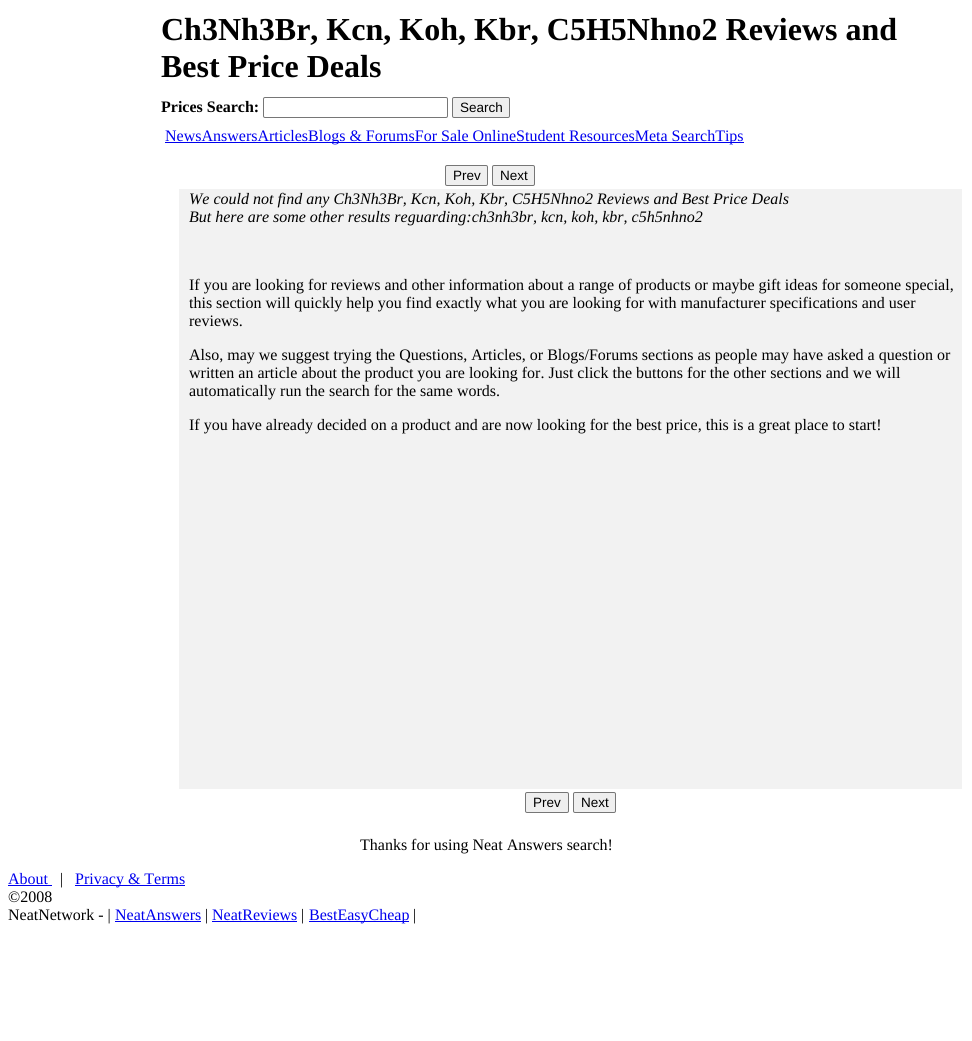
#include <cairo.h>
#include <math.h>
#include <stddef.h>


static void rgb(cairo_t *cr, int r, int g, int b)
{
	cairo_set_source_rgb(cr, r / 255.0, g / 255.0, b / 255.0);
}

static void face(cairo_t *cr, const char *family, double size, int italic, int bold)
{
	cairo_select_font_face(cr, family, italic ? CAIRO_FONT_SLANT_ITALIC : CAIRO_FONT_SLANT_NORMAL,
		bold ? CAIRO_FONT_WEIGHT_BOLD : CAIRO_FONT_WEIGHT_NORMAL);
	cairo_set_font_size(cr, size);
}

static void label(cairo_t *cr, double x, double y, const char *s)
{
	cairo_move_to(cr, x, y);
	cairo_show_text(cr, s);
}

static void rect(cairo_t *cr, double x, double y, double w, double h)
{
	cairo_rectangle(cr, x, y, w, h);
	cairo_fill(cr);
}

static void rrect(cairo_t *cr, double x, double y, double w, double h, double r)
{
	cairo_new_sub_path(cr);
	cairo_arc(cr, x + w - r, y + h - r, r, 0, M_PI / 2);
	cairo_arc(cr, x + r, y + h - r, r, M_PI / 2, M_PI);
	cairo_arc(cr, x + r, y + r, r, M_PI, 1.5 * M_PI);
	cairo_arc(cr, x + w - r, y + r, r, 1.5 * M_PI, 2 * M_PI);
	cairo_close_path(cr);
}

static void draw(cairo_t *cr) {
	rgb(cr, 255, 255, 255);
	cairo_paint(cr);
	face(cr, "Liberation Serif", 32, 0, 1);
	rgb(cr, 0, 0, 0);
	label(cr, 161, 40, "Ch3Nh3Br, Kcn, Koh, Kbr, C5H5Nhno2 Reviews and");
	label(cr, 161, 77, "Best Price Deals");
	face(cr, "Liberation Serif", 16, 0, 1);
	label(cr, 161, 112, "Prices Search:");
	rrect(cr, 263.5, 97.5, 184, 20, 1.5);
	rgb(cr, 118, 118, 118);
	cairo_set_line_width(cr, 1);
	cairo_stroke(cr);
	rgb(cr, 239, 239, 239);
	rrect(cr, 452.5, 97.5, 57, 20, 1.5);
	cairo_fill_preserve(cr);
	rgb(cr, 118, 118, 118);
	cairo_stroke(cr);
	face(cr, "Liberation Sans", 13.5, 0, 0);
	rgb(cr, 0, 0, 0);
	label(cr, 460, 112, "Search");
	rgb(cr, 0, 0, 238);
	rect(cr, 165, 142, 579, 1);
	face(cr, "Liberation Serif", 16, 0, 0);
	label(cr, 165, 141, "NewsAnswersArticlesBlogs & ForumsFor Sale OnlineStudent ResourcesMeta SearchTips");
	rgb(cr, 239, 239, 239);
	rrect(cr, 445.5, 165.5, 42, 20, 1.5);
	cairo_fill_preserve(cr);
	rgb(cr, 118, 118, 118);
	cairo_stroke(cr);
	face(cr, "Liberation Sans", 13.5, 0, 0);
	rgb(cr, 0, 0, 0);
	label(cr, 453, 180, "Prev");
	rgb(cr, 239, 239, 239);
	rrect(cr, 492.5, 165.5, 42, 20, 1.5);
	cairo_fill_preserve(cr);
	rgb(cr, 118, 118, 118);
	cairo_stroke(cr);
	rgb(cr, 0, 0, 0);
	label(cr, 500, 180, "Next");
	rgb(cr, 242, 242, 242);
	rect(cr, 179, 189, 783, 600);
	face(cr, "Liberation Serif", 16, 1, 0);
	rgb(cr, 0, 0, 0);
	label(cr, 189, 204, "We could not find any Ch3Nh3Br, Kcn, Koh, Kbr, C5H5Nhno2 Reviews and Best Price Deals");
	label(cr, 189, 222, "But here are some other results reguarding:ch3nh3br, kcn, koh, kbr, c5h5nhno2");
	face(cr, "Liberation Serif", 16, 0, 0);
	label(cr, 189, 290, "If you are looking for reviews and other information about a range of products or maybe gift ideas for someone special,");
	label(cr, 189, 308, "this section will quickly help you find exactly what you are looking for with manufacturer specifications and user");
	label(cr, 189, 326, "reviews.");
	label(cr, 189, 360, "Also, may we suggest trying the Questions, Articles, or Blogs/Forums sections as people may have asked a question or");
	label(cr, 189, 378, "written an article about the product you are looking for. Just click the buttons for the other sections and we will");
	label(cr, 189, 396, "automatically run the search for the same words.");
	label(cr, 189, 430, "If you have already decided on a product and are now looking for the best price, this is a great place to start!");
	rgb(cr, 239, 239, 239);
	rrect(cr, 525.5, 792.5, 43, 20, 1.5);
	cairo_fill_preserve(cr);
	rgb(cr, 118, 118, 118);
	cairo_stroke(cr);
	face(cr, "Liberation Sans", 13.5, 0, 0);
	rgb(cr, 0, 0, 0);
	label(cr, 533, 807, "Prev");
	rgb(cr, 239, 239, 239);
	rrect(cr, 573.5, 792.5, 42, 20, 1.5);
	cairo_fill_preserve(cr);
	rgb(cr, 118, 118, 118);
	cairo_stroke(cr);
	rgb(cr, 0, 0, 0);
	label(cr, 581, 807, "Next");
	face(cr, "Liberation Serif", 16, 0, 0);
	label(cr, 360, 850, "Thanks for using Neat Answers search!");
	rgb(cr, 0, 0, 238);
	label(cr, 8, 884, "About");
	rect(cr, 8, 885, 44, 1);
	rgb(cr, 0, 0, 0);
	label(cr, 60, 884, "|");
	rgb(cr, 0, 0, 238);
	rect(cr, 75, 885, 110, 1);
	label(cr, 75, 884, "Privacy & Terms");
	rgb(cr, 0, 0, 0);
	label(cr, 8, 902, "©2008");
	label(cr, 8, 920, "NeatNetwork - |");
	rgb(cr, 0, 0, 238);
	label(cr, 115, 920, "NeatAnswers");
	rect(cr, 115, 921, 86, 1);
	rgb(cr, 0, 0, 0);
	label(cr, 205, 920, "|");
	rgb(cr, 0, 0, 238);
	label(cr, 212, 920, "NeatReviews");
	rect(cr, 212, 921, 85, 1);
	rgb(cr, 0, 0, 0);
	label(cr, 301, 920, "|");
	rgb(cr, 0, 0, 238);
	rect(cr, 309, 921, 100, 1);
	label(cr, 309, 920, "BestEasyCheap");
	rgb(cr, 0, 0, 0);
	label(cr, 413, 920, "|");
}

int main(void) {
	cairo_surface_t *surface = cairo_image_surface_create(CAIRO_FORMAT_RGB24, 972, 1041);
	cairo_t *cr = cairo_create(surface);
	cairo_font_options_t *options = cairo_font_options_create();
	cairo_font_options_set_hint_metrics(options, CAIRO_HINT_METRICS_OFF);
	cairo_font_options_set_hint_style(options, CAIRO_HINT_STYLE_NONE);
	cairo_set_font_options(cr, options);
	cairo_set_miter_limit(cr, 4);
	draw(cr);
	cairo_surface_write_to_png(surface, "render.png");
	cairo_font_options_destroy(options);
	cairo_destroy(cr);
	cairo_surface_destroy(surface);
	return 0;
}
